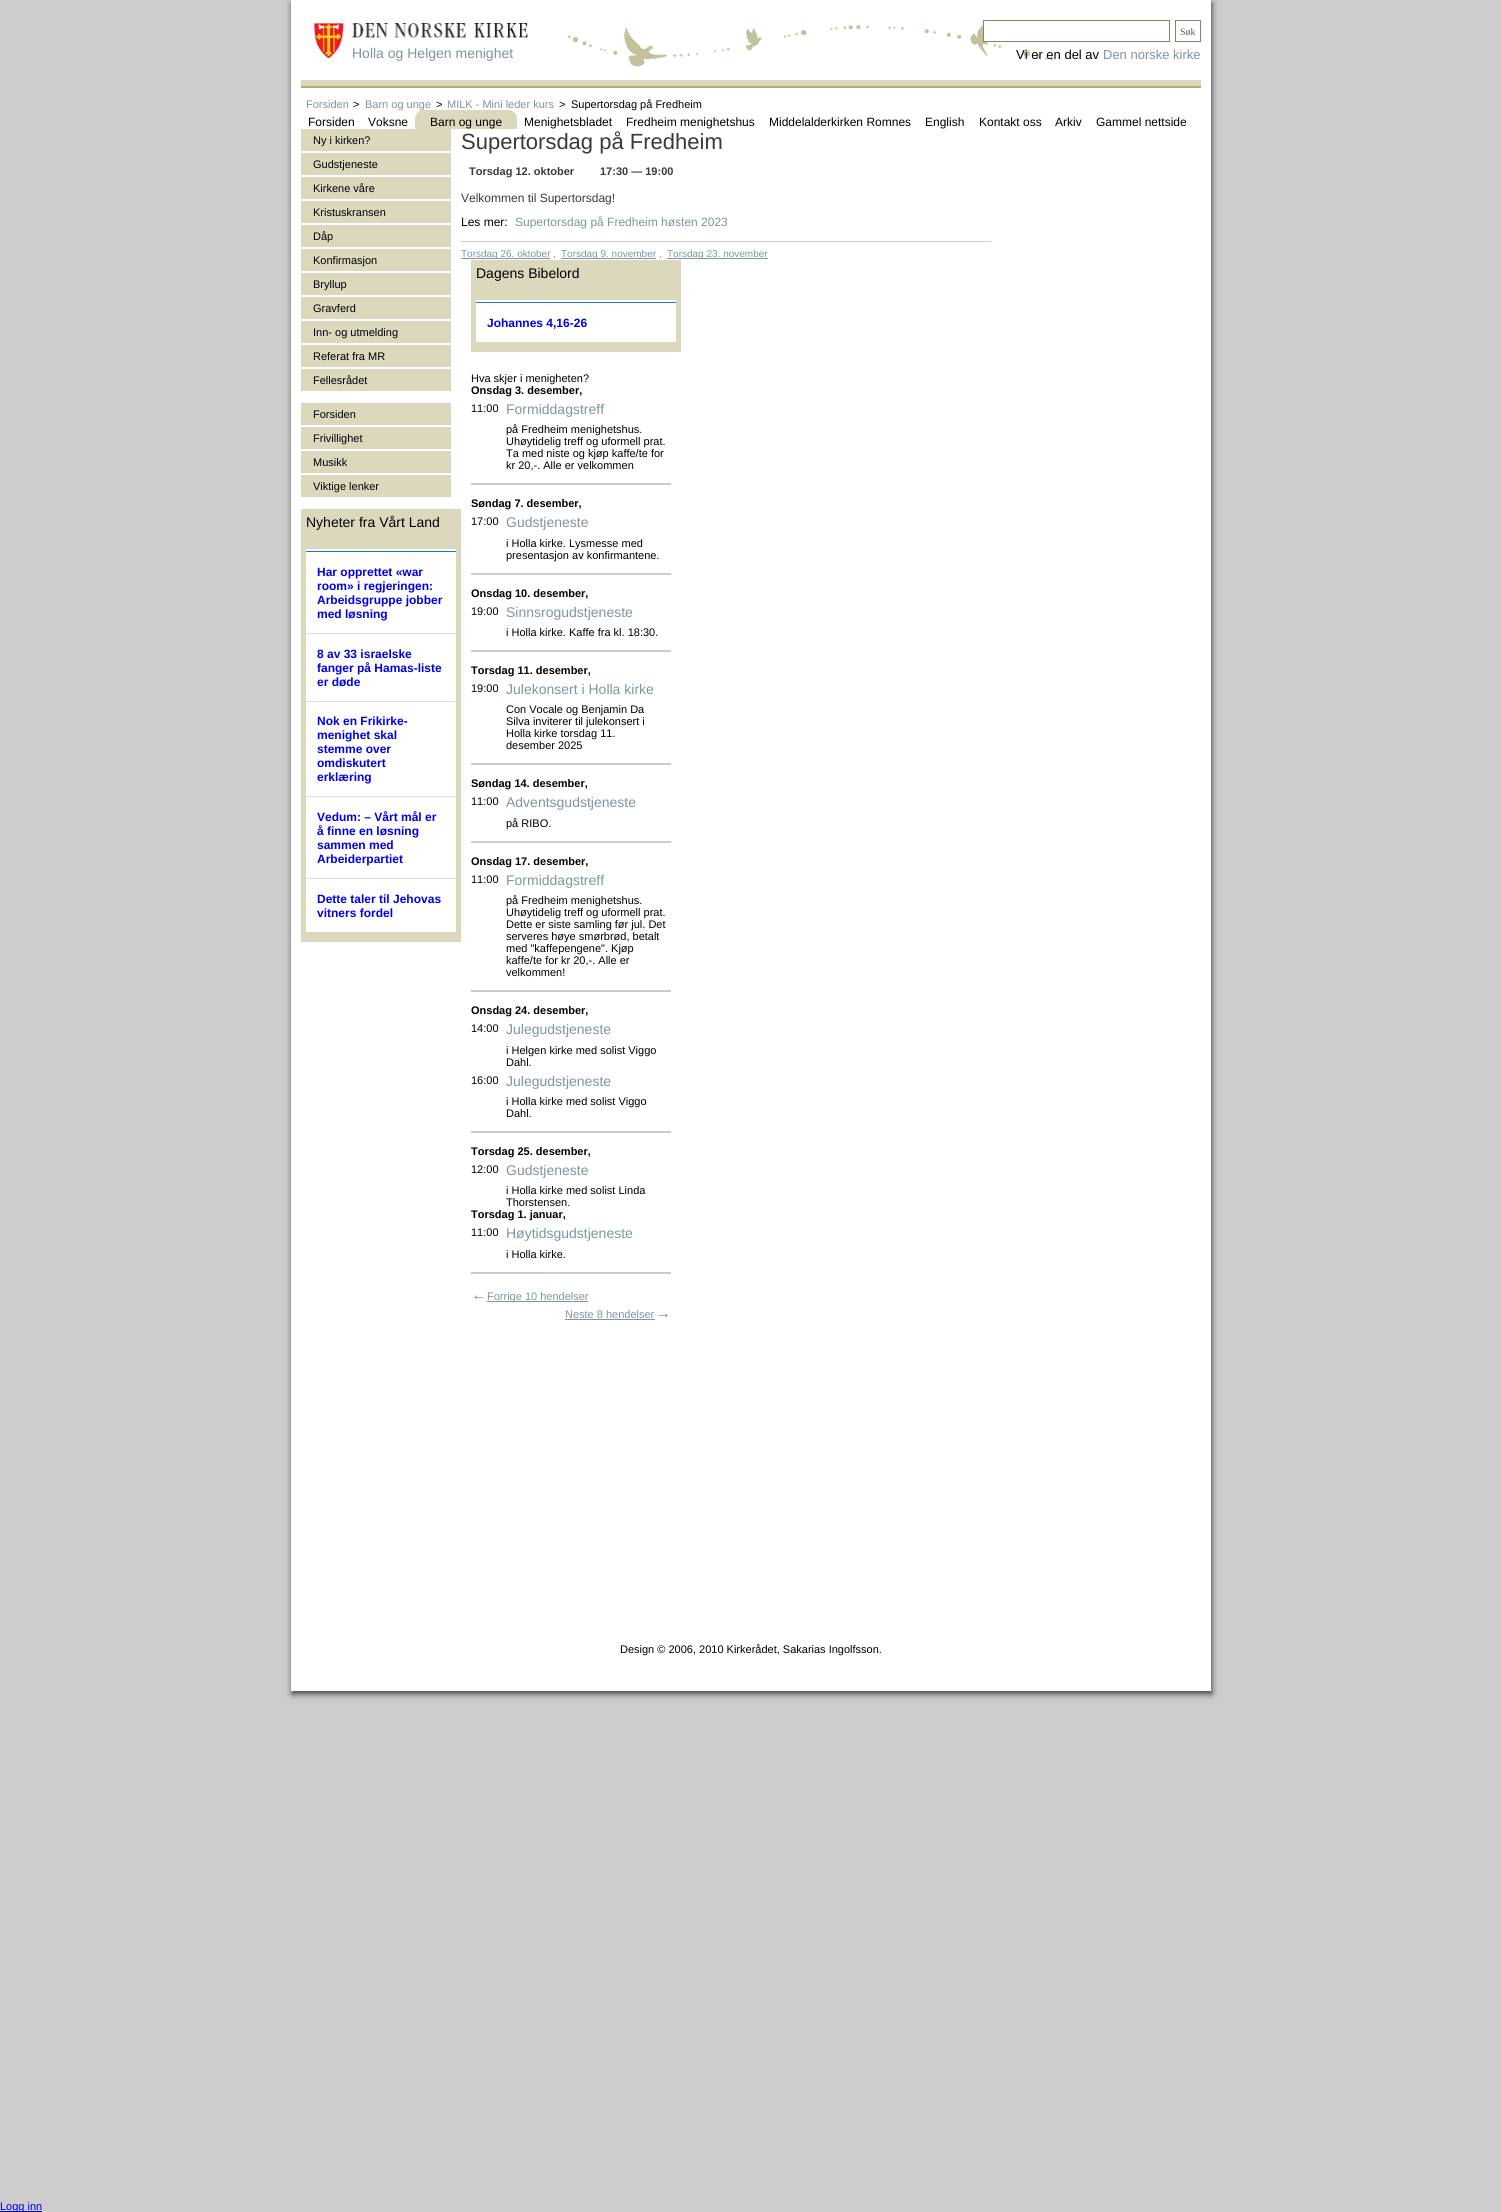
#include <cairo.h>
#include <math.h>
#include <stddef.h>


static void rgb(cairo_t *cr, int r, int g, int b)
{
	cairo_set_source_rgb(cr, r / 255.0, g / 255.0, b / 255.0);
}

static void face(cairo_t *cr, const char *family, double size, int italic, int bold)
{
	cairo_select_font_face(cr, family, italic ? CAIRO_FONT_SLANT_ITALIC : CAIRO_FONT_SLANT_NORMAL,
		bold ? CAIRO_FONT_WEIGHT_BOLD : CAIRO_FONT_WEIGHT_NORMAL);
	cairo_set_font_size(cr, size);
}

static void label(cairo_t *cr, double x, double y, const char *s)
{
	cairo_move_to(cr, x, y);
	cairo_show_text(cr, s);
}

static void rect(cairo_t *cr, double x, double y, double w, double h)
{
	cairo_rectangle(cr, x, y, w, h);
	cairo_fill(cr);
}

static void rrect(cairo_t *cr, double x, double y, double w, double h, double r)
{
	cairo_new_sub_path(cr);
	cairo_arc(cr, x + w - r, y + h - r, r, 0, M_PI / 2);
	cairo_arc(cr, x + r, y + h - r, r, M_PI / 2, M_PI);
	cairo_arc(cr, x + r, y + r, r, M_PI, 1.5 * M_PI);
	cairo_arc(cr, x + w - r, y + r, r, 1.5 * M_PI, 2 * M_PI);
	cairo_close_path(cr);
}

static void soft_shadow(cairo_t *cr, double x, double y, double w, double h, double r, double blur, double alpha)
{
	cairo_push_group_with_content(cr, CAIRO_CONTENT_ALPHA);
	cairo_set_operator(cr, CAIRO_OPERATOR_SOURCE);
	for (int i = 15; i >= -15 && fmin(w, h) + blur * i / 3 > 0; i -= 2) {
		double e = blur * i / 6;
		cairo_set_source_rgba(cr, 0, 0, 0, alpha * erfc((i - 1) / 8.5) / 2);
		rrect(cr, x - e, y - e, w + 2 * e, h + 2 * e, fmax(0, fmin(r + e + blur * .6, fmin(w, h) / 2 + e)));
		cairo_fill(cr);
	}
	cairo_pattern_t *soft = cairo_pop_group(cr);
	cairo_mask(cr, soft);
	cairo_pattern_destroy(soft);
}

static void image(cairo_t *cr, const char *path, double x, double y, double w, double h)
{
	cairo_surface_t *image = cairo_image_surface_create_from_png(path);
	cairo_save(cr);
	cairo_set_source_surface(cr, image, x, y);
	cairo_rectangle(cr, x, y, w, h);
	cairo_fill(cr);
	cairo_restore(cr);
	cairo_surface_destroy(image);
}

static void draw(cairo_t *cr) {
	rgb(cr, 204, 204, 204);
	cairo_paint(cr);
	rgb(cr, 68, 68, 68);
	soft_shadow(cr, 292, 3, 920, 1691, 0, 3, 1);
	rgb(cr, 255, 255, 255);
	rect(cr, 291, 0, 920, 1691);
	rgb(cr, 179, 170, 125);
	rect(cr, 301, 86, 900, 2);
	image(cr, "image0.png", 568, 22, 485, 45);
	rgb(cr, 219, 216, 190);
	rect(cr, 301, 80, 900, 6);
	rgb(cr, 255, 255, 255);
	rect(cr, 984, 22, 7, 19);
	cairo_rectangle(cr, 983.5, 20.5, 186, 21);
	rgb(cr, 133, 133, 105);
	cairo_set_line_width(cr, 1);
	cairo_stroke(cr);
	cairo_rectangle(cr, 1175.5, 20.5, 25, 21);
	cairo_stroke(cr);
	face(cr, "Liberation Serif", 10, 0, 0);
	rgb(cr, 94, 96, 84);
	label(cr, 1180, 35, "Søk");
	image(cr, "image1.png", 314, 23, 214, 36);
	face(cr, "Liberation Sans", 14, 0, 0);
	rgb(cr, 127, 147, 162);
	label(cr, 352, 58, "Holla og Helgen menighet");
	face(cr, "Liberation Sans", 13, 0, 0);
	rgb(cr, 0, 0, 0);
	label(cr, 1016, 59, "Vi er en del av");
	rgb(cr, 127, 147, 162);
	label(cr, 1103, 59, "Den norske kirke");
	face(cr, "Liberation Sans", 11, 0, 0);
	label(cr, 306, 108, "Forsiden");
	rgb(cr, 0, 0, 0);
	label(cr, 353, 108, ">");
	rgb(cr, 127, 147, 162);
	label(cr, 365, 108, "Barn og unge");
	rgb(cr, 0, 0, 0);
	label(cr, 436, 108, ">");
	rgb(cr, 127, 147, 162);
	label(cr, 447, 108, "MILK - Mini leder kurs");
	rgb(cr, 0, 0, 0);
	label(cr, 559, 108, ">");
	label(cr, 571, 108, "Supertorsdag på Fredheim");
	face(cr, "Liberation Sans", 12, 0, 0);
	label(cr, 308, 126, "Forsiden");
	label(cr, 368, 126, "Voksne");
	rgb(cr, 219, 216, 190);
	rect(cr, 415, 110, 102, 19);
	image(cr, "image2.png", 415, 110, 8, 8);
	image(cr, "image3.png", 509, 110, 8, 8);
	rgb(cr, 0, 0, 0);
	label(cr, 430, 126, "Barn og unge");
	label(cr, 524, 126, "Menighetsbladet");
	label(cr, 626, 126, "Fredheim menighetshus");
	label(cr, 769, 126, "Middelalderkirken Romnes");
	label(cr, 925, 126, "English");
	label(cr, 979, 126, "Kontakt oss");
	label(cr, 1055, 126, "Arkiv");
	label(cr, 1096, 126, "Gammel nettside");
	rgb(cr, 219, 216, 190);
	rect(cr, 301, 129, 150, 22);
	face(cr, "Liberation Sans", 11, 0, 0);
	rgb(cr, 0, 0, 0);
	label(cr, 313, 144, "Ny i kirken?");
	rgb(cr, 219, 216, 190);
	rect(cr, 301, 153, 150, 22);
	rgb(cr, 0, 0, 0);
	label(cr, 313, 168, "Gudstjeneste");
	rgb(cr, 219, 216, 190);
	rect(cr, 301, 177, 150, 22);
	rgb(cr, 0, 0, 0);
	label(cr, 313, 192, "Kirkene våre");
	rgb(cr, 219, 216, 190);
	rect(cr, 301, 201, 150, 22);
	rgb(cr, 0, 0, 0);
	label(cr, 313, 216, "Kristuskransen");
	rgb(cr, 219, 216, 190);
	rect(cr, 301, 225, 150, 22);
	rgb(cr, 0, 0, 0);
	label(cr, 313, 240, "Dåp");
	rgb(cr, 219, 216, 190);
	rect(cr, 301, 249, 150, 22);
	rgb(cr, 0, 0, 0);
	label(cr, 313, 264, "Konfirmasjon");
	rgb(cr, 219, 216, 190);
	rect(cr, 301, 273, 150, 22);
	rgb(cr, 0, 0, 0);
	label(cr, 313, 288, "Bryllup");
	rgb(cr, 219, 216, 190);
	rect(cr, 301, 297, 150, 22);
	rgb(cr, 0, 0, 0);
	label(cr, 313, 312, "Gravferd");
	rgb(cr, 219, 216, 190);
	rect(cr, 301, 321, 150, 22);
	rgb(cr, 0, 0, 0);
	label(cr, 313, 336, "Inn- og utmelding");
	rgb(cr, 219, 216, 190);
	rect(cr, 301, 345, 150, 22);
	rgb(cr, 0, 0, 0);
	label(cr, 313, 360, "Referat fra MR");
	rgb(cr, 219, 216, 190);
	rect(cr, 301, 369, 150, 22);
	rgb(cr, 0, 0, 0);
	label(cr, 313, 384, "Fellesrådet");
	rgb(cr, 219, 216, 190);
	rect(cr, 301, 403, 150, 22);
	rgb(cr, 0, 0, 0);
	label(cr, 313, 418, "Forsiden");
	rgb(cr, 219, 216, 190);
	rect(cr, 301, 427, 150, 22);
	rgb(cr, 0, 0, 0);
	label(cr, 313, 442, "Frivillighet");
	rgb(cr, 219, 216, 190);
	rect(cr, 301, 451, 150, 22);
	rgb(cr, 0, 0, 0);
	label(cr, 313, 466, "Musikk");
	rgb(cr, 219, 216, 190);
	rect(cr, 301, 475, 150, 22);
	rgb(cr, 0, 0, 0);
	label(cr, 313, 490, "Viktige lenker");
	rgb(cr, 219, 216, 190);
	rect(cr, 301, 509, 160, 433);
	face(cr, "Liberation Sans", 14, 0, 0);
	rgb(cr, 0, 0, 0);
	label(cr, 306, 527, "Nyheter fra Vårt Land");
	rgb(cr, 255, 255, 255);
	rect(cr, 306, 549, 150, 383);
	rgb(cr, 17, 131, 168);
	rect(cr, 306, 551, 150, 1);
	rgb(cr, 221, 222, 223);
	rect(cr, 306, 633, 150, 1);
	face(cr, "Liberation Sans", 12, 0, 1);
	rgb(cr, 0, 0, 238);
	label(cr, 317, 576, "Har opprettet «war");
	label(cr, 317, 590, "room» i regjeringen:");
	label(cr, 317, 604, "Arbeidsgruppe jobber");
	label(cr, 317, 618, "med løsning");
	rgb(cr, 221, 222, 223);
	rect(cr, 306, 701, 150, 1);
	rgb(cr, 0, 0, 238);
	label(cr, 317, 658, "8 av 33 israelske");
	label(cr, 317, 672, "fanger på Hamas-liste");
	label(cr, 317, 686, "er døde");
	rgb(cr, 221, 222, 223);
	rect(cr, 306, 796, 150, 1);
	rgb(cr, 0, 0, 238);
	label(cr, 317, 725, "Nok en Frikirke-");
	label(cr, 317, 739, "menighet skal");
	label(cr, 317, 753, "stemme over");
	label(cr, 317, 767, "omdiskutert");
	label(cr, 317, 781, "erklæring");
	rgb(cr, 221, 222, 223);
	rect(cr, 306, 878, 150, 1);
	rgb(cr, 0, 0, 238);
	label(cr, 317, 821, "Vedum: – Vårt mål er");
	label(cr, 317, 835, "å finne en løsning");
	label(cr, 317, 849, "sammen med");
	label(cr, 317, 863, "Arbeiderpartiet");
	label(cr, 317, 903, "Dette taler til Jehovas");
	label(cr, 317, 917, "vitners fordel");
	face(cr, "Liberation Sans", 22, 0, 0);
	rgb(cr, 58, 58, 58);
	label(cr, 461, 149, "Supertorsdag på Fredheim");
	face(cr, "Liberation Sans", 11, 0, 1);
	label(cr, 469, 175, "Torsdag 12. oktober");
	label(cr, 600, 175, "17:30 — 19:00");
	face(cr, "Liberation Sans", 12, 0, 0);
	label(cr, 461, 202, "Velkommen til Supertorsdag!");
	rgb(cr, 0, 0, 0);
	label(cr, 461, 226, "Les mer:");
	rgb(cr, 127, 147, 162);
	label(cr, 515, 226, "Supertorsdag på Fredheim høsten 2023");
	rgb(cr, 204, 204, 204);
	rect(cr, 461, 241, 530, 1);
	rgb(cr, 127, 147, 162);
	rect(cr, 461, 258, 89, 1);
	face(cr, "Liberation Sans", 10, 0, 0);
	label(cr, 461, 257, "Torsdag 26. oktober");
	rgb(cr, 132, 132, 132);
	label(cr, 553, 257, ",");
	rgb(cr, 127, 147, 162);
	rect(cr, 561, 258, 95, 1);
	label(cr, 561, 257, "Torsdag 9. november");
	rgb(cr, 132, 132, 132);
	label(cr, 659, 257, ",");
	rgb(cr, 127, 147, 162);
	rect(cr, 667, 258, 101, 1);
	label(cr, 667, 257, "Torsdag 23. november");
	rgb(cr, 219, 216, 190);
	rect(cr, 471, 260, 210, 92);
	face(cr, "Liberation Sans", 14, 0, 0);
	rgb(cr, 0, 0, 0);
	label(cr, 476, 278, "Dagens Bibelord");
	rgb(cr, 255, 255, 255);
	rect(cr, 476, 300, 200, 42);
	rgb(cr, 17, 131, 168);
	rect(cr, 476, 302, 200, 1);
	face(cr, "Liberation Sans", 12, 0, 1);
	rgb(cr, 0, 0, 238);
	label(cr, 487, 327, "Johannes 4,16-26");
	face(cr, "Liberation Sans", 11, 0, 0);
	rgb(cr, 0, 0, 0);
	label(cr, 471, 382, "Hva skjer i menigheten?");
	face(cr, "Liberation Sans", 11, 0, 1);
	label(cr, 471, 394, "Onsdag 3. desember,");
	face(cr, "Liberation Sans", 11, 0, 0);
	label(cr, 471, 412, "11:00");
	face(cr, "Liberation Sans", 14, 0, 0);
	rgb(cr, 127, 147, 162);
	label(cr, 506, 414, "Formiddagstreff");
	face(cr, "Liberation Sans", 11, 0, 0);
	rgb(cr, 0, 0, 0);
	label(cr, 506, 433, "på Fredheim menighetshus.");
	label(cr, 506, 445, "Uhøytidelig treff og uformell prat.");
	label(cr, 506, 457, "Ta med niste og kjøp kaffe/te for");
	label(cr, 506, 469, "kr 20,-. Alle er velkommen");
	rgb(cr, 204, 204, 204);
	rect(cr, 471, 483, 200, 2);
	face(cr, "Liberation Sans", 11, 0, 1);
	rgb(cr, 0, 0, 0);
	label(cr, 471, 507, "Søndag 7. desember,");
	face(cr, "Liberation Sans", 11, 0, 0);
	label(cr, 471, 525, "17:00");
	face(cr, "Liberation Sans", 14, 0, 0);
	rgb(cr, 127, 147, 162);
	label(cr, 506, 527, "Gudstjeneste");
	face(cr, "Liberation Sans", 11, 0, 0);
	rgb(cr, 0, 0, 0);
	label(cr, 506, 547, "i Holla kirke. Lysmesse med");
	label(cr, 506, 559, "presentasjon av konfirmantene.");
	rgb(cr, 204, 204, 204);
	rect(cr, 471, 573, 200, 2);
	face(cr, "Liberation Sans", 11, 0, 1);
	rgb(cr, 0, 0, 0);
	label(cr, 471, 597, "Onsdag 10. desember,");
	face(cr, "Liberation Sans", 11, 0, 0);
	label(cr, 471, 615, "19:00");
	face(cr, "Liberation Sans", 14, 0, 0);
	rgb(cr, 127, 147, 162);
	label(cr, 506, 617, "Sinnsrogudstjeneste");
	face(cr, "Liberation Sans", 11, 0, 0);
	rgb(cr, 0, 0, 0);
	label(cr, 506, 636, "i Holla kirke. Kaffe fra kl. 18:30.");
	rgb(cr, 204, 204, 204);
	rect(cr, 471, 650, 200, 2);
	face(cr, "Liberation Sans", 11, 0, 1);
	rgb(cr, 0, 0, 0);
	label(cr, 471, 674, "Torsdag 11. desember,");
	face(cr, "Liberation Sans", 11, 0, 0);
	label(cr, 471, 692, "19:00");
	face(cr, "Liberation Sans", 14, 0, 0);
	rgb(cr, 127, 147, 162);
	label(cr, 506, 694, "Julekonsert i Holla kirke");
	face(cr, "Liberation Sans", 11, 0, 0);
	rgb(cr, 0, 0, 0);
	label(cr, 506, 713, "Con Vocale og Benjamin Da");
	label(cr, 506, 725, "Silva inviterer til julekonsert i");
	label(cr, 506, 737, "Holla kirke torsdag 11.");
	label(cr, 506, 749, "desember 2025");
	rgb(cr, 204, 204, 204);
	rect(cr, 471, 763, 200, 2);
	face(cr, "Liberation Sans", 11, 0, 1);
	rgb(cr, 0, 0, 0);
	label(cr, 471, 787, "Søndag 14. desember,");
	face(cr, "Liberation Sans", 11, 0, 0);
	label(cr, 471, 805, "11:00");
	face(cr, "Liberation Sans", 14, 0, 0);
	rgb(cr, 127, 147, 162);
	label(cr, 506, 807, "Adventsgudstjeneste");
	face(cr, "Liberation Sans", 11, 0, 0);
	rgb(cr, 0, 0, 0);
	label(cr, 506, 827, "på RIBO.");
	rgb(cr, 204, 204, 204);
	rect(cr, 471, 841, 200, 2);
	face(cr, "Liberation Sans", 11, 0, 1);
	rgb(cr, 0, 0, 0);
	label(cr, 471, 865, "Onsdag 17. desember,");
	face(cr, "Liberation Sans", 11, 0, 0);
	label(cr, 471, 883, "11:00");
	face(cr, "Liberation Sans", 14, 0, 0);
	rgb(cr, 127, 147, 162);
	label(cr, 506, 885, "Formiddagstreff");
	face(cr, "Liberation Sans", 11, 0, 0);
	rgb(cr, 0, 0, 0);
	label(cr, 506, 904, "på Fredheim menighetshus.");
	label(cr, 506, 916, "Uhøytidelig treff og uformell prat.");
	label(cr, 506, 928, "Dette er siste samling før jul. Det");
	label(cr, 506, 940, "serveres høye smørbrød, betalt");
	label(cr, 506, 952, "med \"kaffepengene\". Kjøp");
	label(cr, 506, 964, "kaffe/te for kr 20,-. Alle er");
	label(cr, 506, 976, "velkommen!");
	rgb(cr, 204, 204, 204);
	rect(cr, 471, 990, 200, 2);
	face(cr, "Liberation Sans", 11, 0, 1);
	rgb(cr, 0, 0, 0);
	label(cr, 471, 1014, "Onsdag 24. desember,");
	face(cr, "Liberation Sans", 11, 0, 0);
	label(cr, 471, 1032, "14:00");
	face(cr, "Liberation Sans", 14, 0, 0);
	rgb(cr, 127, 147, 162);
	label(cr, 506, 1034, "Julegudstjeneste");
	face(cr, "Liberation Sans", 11, 0, 0);
	rgb(cr, 0, 0, 0);
	label(cr, 506, 1054, "i Helgen kirke med solist Viggo");
	label(cr, 506, 1066, "Dahl.");
	label(cr, 471, 1084, "16:00");
	face(cr, "Liberation Sans", 14, 0, 0);
	rgb(cr, 127, 147, 162);
	label(cr, 506, 1086, "Julegudstjeneste");
	face(cr, "Liberation Sans", 11, 0, 0);
	rgb(cr, 0, 0, 0);
	label(cr, 506, 1105, "i Holla kirke med solist Viggo");
	label(cr, 506, 1117, "Dahl.");
	rgb(cr, 204, 204, 204);
	rect(cr, 471, 1131, 200, 2);
	face(cr, "Liberation Sans", 11, 0, 1);
	rgb(cr, 0, 0, 0);
	label(cr, 471, 1155, "Torsdag 25. desember,");
	face(cr, "Liberation Sans", 11, 0, 0);
	label(cr, 471, 1173, "12:00");
	face(cr, "Liberation Sans", 14, 0, 0);
	rgb(cr, 127, 147, 162);
	label(cr, 506, 1175, "Gudstjeneste");
	face(cr, "Liberation Sans", 11, 0, 0);
	rgb(cr, 0, 0, 0);
	label(cr, 506, 1194, "i Holla kirke med solist Linda");
	label(cr, 506, 1206, "Thorstensen.");
	face(cr, "Liberation Sans", 11, 0, 1);
	label(cr, 471, 1218, "Torsdag 1. januar,");
	face(cr, "Liberation Sans", 11, 0, 0);
	label(cr, 471, 1236, "11:00");
	face(cr, "Liberation Sans", 14, 0, 0);
	rgb(cr, 127, 147, 162);
	label(cr, 506, 1238, "Høytidsgudstjeneste");
	face(cr, "Liberation Sans", 11, 0, 0);
	rgb(cr, 0, 0, 0);
	label(cr, 506, 1258, "i Holla kirke.");
	rgb(cr, 204, 204, 204);
	rect(cr, 471, 1272, 200, 2);
	face(cr, "Liberation Sans", 16, 0, 0);
	rgb(cr, 127, 147, 162);
	label(cr, 471, 1300, "←");
	rect(cr, 487, 1301, 101, 1);
	face(cr, "Liberation Sans", 11, 0, 0);
	label(cr, 487, 1300, "Forrige 10 hendelser");
	label(cr, 565, 1318, "Neste 8 hendelser");
	rect(cr, 565, 1319, 90, 1);
	face(cr, "Liberation Sans", 16, 0, 0);
	label(cr, 655, 1318, "→");
	face(cr, "Liberation Sans", 11, 0, 0);
	rgb(cr, 0, 0, 0);
	label(cr, 620, 1653, "Design © 2006, 2010 Kirkerådet, Sakarias Ingolfsson.");
	rgb(cr, 0, 0, 238);
	rect(cr, 0, 2211, 42, 1);
	label(cr, 0, 2210, "Logg inn");
}

int main(void) {
	cairo_surface_t *surface = cairo_image_surface_create(CAIRO_FORMAT_RGB24, 1501, 2212);
	cairo_t *cr = cairo_create(surface);
	cairo_font_options_t *options = cairo_font_options_create();
	cairo_font_options_set_hint_metrics(options, CAIRO_HINT_METRICS_OFF);
	cairo_font_options_set_hint_style(options, CAIRO_HINT_STYLE_NONE);
	cairo_set_font_options(cr, options);
	cairo_set_miter_limit(cr, 4);
	draw(cr);
	cairo_surface_write_to_png(surface, "render.png");
	cairo_font_options_destroy(options);
	cairo_destroy(cr);
	cairo_surface_destroy(surface);
	return 0;
}
